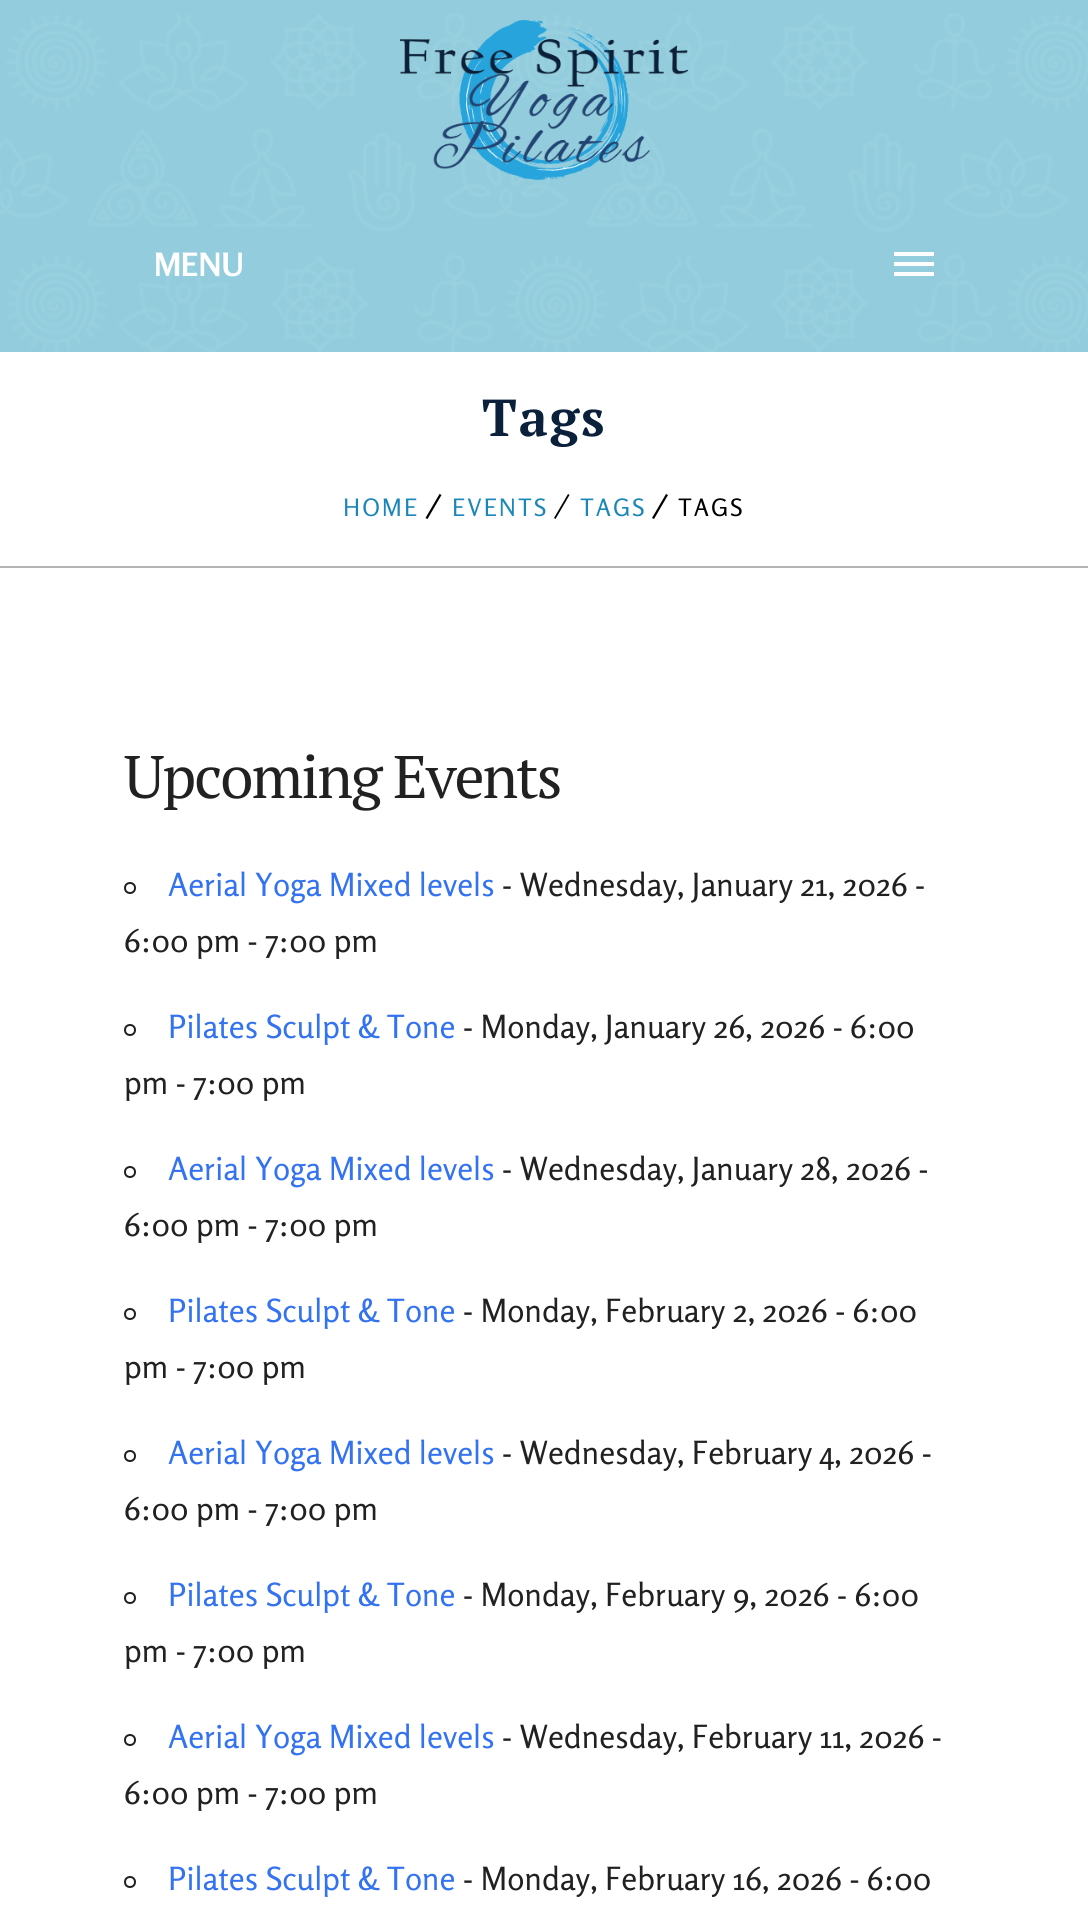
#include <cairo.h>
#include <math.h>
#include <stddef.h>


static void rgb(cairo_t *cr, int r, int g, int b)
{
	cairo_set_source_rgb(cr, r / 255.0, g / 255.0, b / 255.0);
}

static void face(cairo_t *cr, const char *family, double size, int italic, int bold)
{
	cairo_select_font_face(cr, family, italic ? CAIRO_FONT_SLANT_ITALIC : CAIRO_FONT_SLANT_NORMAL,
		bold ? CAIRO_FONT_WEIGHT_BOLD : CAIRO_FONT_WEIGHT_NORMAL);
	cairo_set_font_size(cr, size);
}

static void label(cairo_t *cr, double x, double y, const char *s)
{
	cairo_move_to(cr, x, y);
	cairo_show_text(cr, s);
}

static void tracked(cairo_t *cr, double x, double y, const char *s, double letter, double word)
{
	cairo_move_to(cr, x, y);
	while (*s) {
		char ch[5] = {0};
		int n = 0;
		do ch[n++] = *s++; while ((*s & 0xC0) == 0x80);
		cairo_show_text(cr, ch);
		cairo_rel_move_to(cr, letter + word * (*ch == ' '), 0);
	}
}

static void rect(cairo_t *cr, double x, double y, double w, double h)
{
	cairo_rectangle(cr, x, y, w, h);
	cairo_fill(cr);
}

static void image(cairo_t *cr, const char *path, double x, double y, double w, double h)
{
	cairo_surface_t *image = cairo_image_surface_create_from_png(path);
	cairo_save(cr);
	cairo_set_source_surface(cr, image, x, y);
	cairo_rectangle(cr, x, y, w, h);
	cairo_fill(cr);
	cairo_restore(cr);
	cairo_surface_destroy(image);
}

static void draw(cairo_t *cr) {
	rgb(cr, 255, 255, 255);
	cairo_paint(cr);
	rgb(cr, 147, 205, 221);
	rect(cr, 0, 0, 1088, 352);
	image(cr, "image0.png", 0, 14, 1088, 338);
	image(cr, "image1.png", 400, 20, 288, 160);
	face(cr, "Rosario", 32, 0, 1);
	rgb(cr, 255, 255, 255);
	label(cr, 154, 276, "MENU");
	rect(cr, 894, 262, 40, 4);
	rect(cr, 894, 252, 40, 4);
	rect(cr, 894, 272, 40, 4);
	rgb(cr, 179, 179, 179);
	rect(cr, 0, 566, 1088, 2);
	face(cr, "PT Serif", 52, 0, 1);
	rgb(cr, 11, 33, 59);
	tracked(cr, 482, 436, "Tags", 2, 0);
	face(cr, "Rosario", 24, 0, 0);
	rgb(cr, 27, 135, 185);
	tracked(cr, 343, 516, "HOME", 2, 0);
	rgb(cr, 0, 0, 0);
	cairo_new_path(cr);
	cairo_move_to(cr, 439.5, 494);
	cairo_line_to(cr, 441.5, 495);
	cairo_line_to(cr, 427.5, 519);
	cairo_line_to(cr, 425.5, 518);
	cairo_close_path(cr);
	cairo_fill(cr);
	rgb(cr, 27, 135, 185);
	tracked(cr, 452, 516, "EVENTS", 2, 0);
	rgb(cr, 0, 0, 0);
	cairo_new_path(cr);
	cairo_move_to(cr, 568, 494);
	cairo_line_to(cr, 569.5, 495);
	cairo_line_to(cr, 555.5, 519);
	cairo_line_to(cr, 554, 518);
	cairo_close_path(cr);
	cairo_fill(cr);
	rgb(cr, 27, 135, 185);
	tracked(cr, 580, 516, "TAGS", 2, 0);
	rgb(cr, 0, 0, 0);
	cairo_new_path(cr);
	cairo_move_to(cr, 666, 494);
	cairo_line_to(cr, 668, 495);
	cairo_line_to(cr, 654, 519);
	cairo_line_to(cr, 652, 518);
	cairo_close_path(cr);
	cairo_fill(cr);
	tracked(cr, 678, 516, "TAGS", 2, 0);
	face(cr, "PT Serif", 60, 0, 0);
	rgb(cr, 33, 33, 33);
	tracked(cr, 124, 798, "Upcoming Events", -2, 0);
	cairo_new_path(cr);
	cairo_arc(cr, 130, 888, 5, 0, 2 * M_PI);
	cairo_stroke(cr);
	face(cr, "Rosario", 32, 0, 0);
	rgb(cr, 51, 114, 240);
	label(cr, 168, 896, "Aerial Yoga Mixed levels");
	rgb(cr, 33, 33, 33);
	label(cr, 502, 896, "- Wednesday, January 21, 2026 -");
	label(cr, 124, 952, "6:00 pm - 7:00 pm");
	cairo_new_path(cr);
	cairo_arc(cr, 130, 1030, 5, 0, 2 * M_PI);
	cairo_stroke(cr);
	rgb(cr, 51, 114, 240);
	label(cr, 168, 1038, "Pilates Sculpt & Tone");
	rgb(cr, 33, 33, 33);
	label(cr, 463, 1038, "- Monday, January 26, 2026 - 6:00");
	label(cr, 124, 1094, "pm - 7:00 pm");
	cairo_new_path(cr);
	cairo_arc(cr, 130, 1172, 5, 0, 2 * M_PI);
	cairo_stroke(cr);
	rgb(cr, 51, 114, 240);
	label(cr, 168, 1180, "Aerial Yoga Mixed levels");
	rgb(cr, 33, 33, 33);
	label(cr, 502, 1180, "- Wednesday, January 28, 2026 -");
	label(cr, 124, 1236, "6:00 pm - 7:00 pm");
	cairo_new_path(cr);
	cairo_arc(cr, 130, 1314, 5, 0, 2 * M_PI);
	cairo_stroke(cr);
	rgb(cr, 51, 114, 240);
	label(cr, 168, 1322, "Pilates Sculpt & Tone");
	rgb(cr, 33, 33, 33);
	label(cr, 463, 1322, "- Monday, February 2, 2026 - 6:00");
	label(cr, 124, 1378, "pm - 7:00 pm");
	cairo_new_path(cr);
	cairo_arc(cr, 130, 1456, 5, 0, 2 * M_PI);
	cairo_stroke(cr);
	rgb(cr, 51, 114, 240);
	label(cr, 168, 1464, "Aerial Yoga Mixed levels");
	rgb(cr, 33, 33, 33);
	label(cr, 502, 1464, "- Wednesday, February 4, 2026 -");
	label(cr, 124, 1520, "6:00 pm - 7:00 pm");
	cairo_new_path(cr);
	cairo_arc(cr, 130, 1598, 5, 0, 2 * M_PI);
	cairo_stroke(cr);
	rgb(cr, 51, 114, 240);
	label(cr, 168, 1606, "Pilates Sculpt & Tone");
	rgb(cr, 33, 33, 33);
	label(cr, 463, 1606, "- Monday, February 9, 2026 - 6:00");
	label(cr, 124, 1662, "pm - 7:00 pm");
	cairo_new_path(cr);
	cairo_arc(cr, 130, 1740, 5, 0, 2 * M_PI);
	cairo_stroke(cr);
	rgb(cr, 51, 114, 240);
	label(cr, 168, 1748, "Aerial Yoga Mixed levels");
	rgb(cr, 33, 33, 33);
	label(cr, 502, 1748, "- Wednesday, February 11, 2026 -");
	label(cr, 124, 1804, "6:00 pm - 7:00 pm");
	cairo_new_path(cr);
	cairo_arc(cr, 130, 1882, 5, 0, 2 * M_PI);
	cairo_stroke(cr);
	rgb(cr, 51, 114, 240);
	label(cr, 168, 1890, "Pilates Sculpt & Tone");
	rgb(cr, 33, 33, 33);
	label(cr, 463, 1890, "- Monday, February 16, 2026 - 6:00");
}

int main(void) {
	cairo_surface_t *surface = cairo_image_surface_create(CAIRO_FORMAT_RGB24, 1088, 1907);
	cairo_t *cr = cairo_create(surface);
	cairo_font_options_t *options = cairo_font_options_create();
	cairo_font_options_set_hint_metrics(options, CAIRO_HINT_METRICS_OFF);
	cairo_font_options_set_hint_style(options, CAIRO_HINT_STYLE_NONE);
	cairo_set_font_options(cr, options);
	cairo_set_miter_limit(cr, 4);
	draw(cr);
	cairo_surface_write_to_png(surface, "render.png");
	cairo_font_options_destroy(options);
	cairo_destroy(cr);
	cairo_surface_destroy(surface);
	return 0;
}
